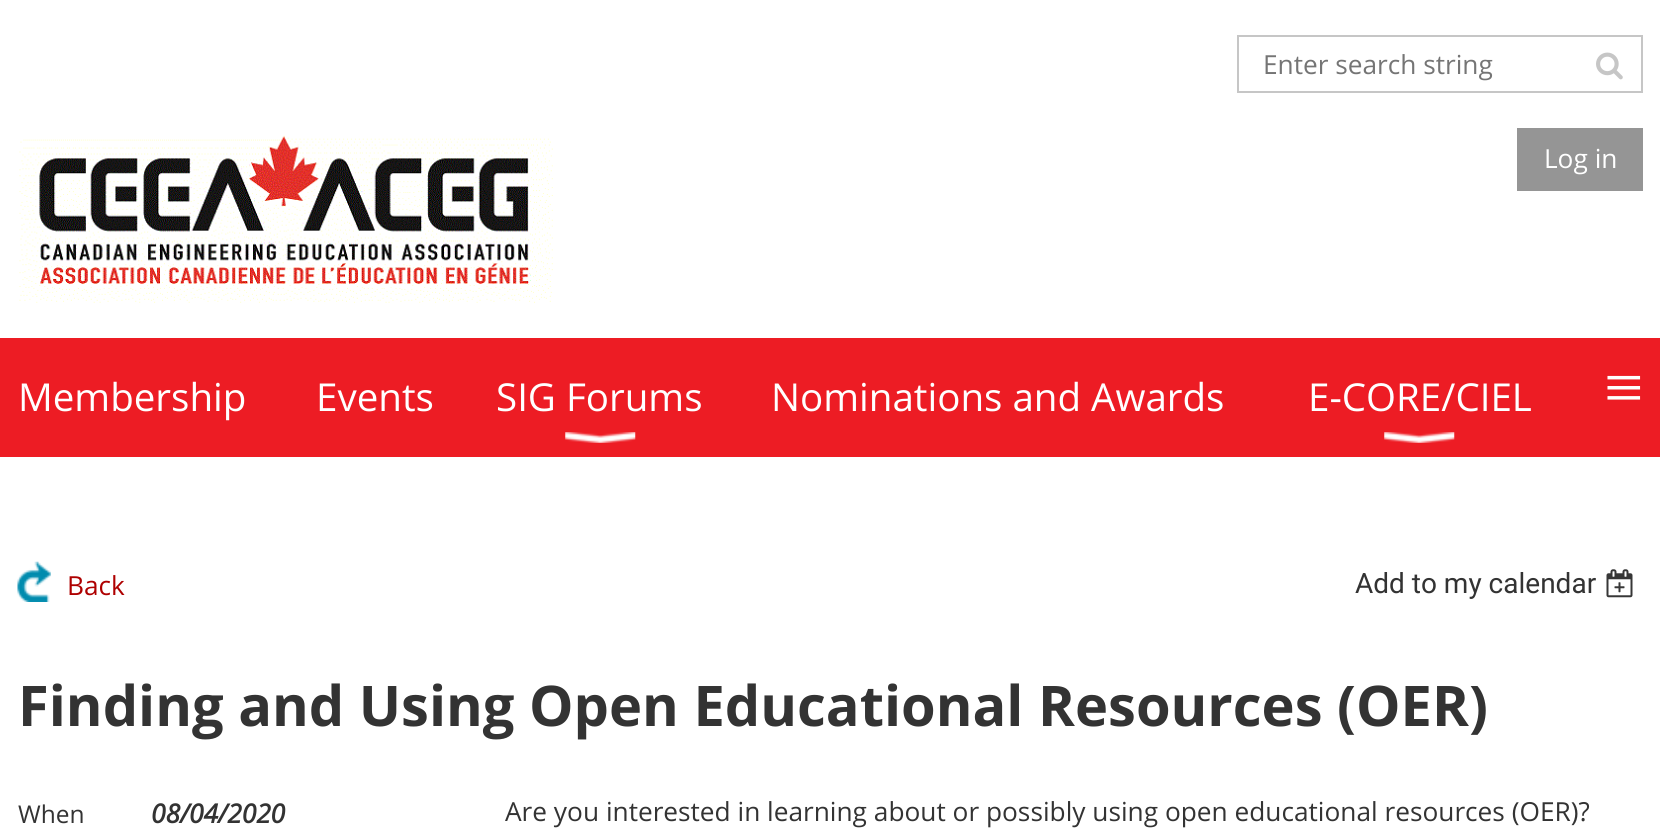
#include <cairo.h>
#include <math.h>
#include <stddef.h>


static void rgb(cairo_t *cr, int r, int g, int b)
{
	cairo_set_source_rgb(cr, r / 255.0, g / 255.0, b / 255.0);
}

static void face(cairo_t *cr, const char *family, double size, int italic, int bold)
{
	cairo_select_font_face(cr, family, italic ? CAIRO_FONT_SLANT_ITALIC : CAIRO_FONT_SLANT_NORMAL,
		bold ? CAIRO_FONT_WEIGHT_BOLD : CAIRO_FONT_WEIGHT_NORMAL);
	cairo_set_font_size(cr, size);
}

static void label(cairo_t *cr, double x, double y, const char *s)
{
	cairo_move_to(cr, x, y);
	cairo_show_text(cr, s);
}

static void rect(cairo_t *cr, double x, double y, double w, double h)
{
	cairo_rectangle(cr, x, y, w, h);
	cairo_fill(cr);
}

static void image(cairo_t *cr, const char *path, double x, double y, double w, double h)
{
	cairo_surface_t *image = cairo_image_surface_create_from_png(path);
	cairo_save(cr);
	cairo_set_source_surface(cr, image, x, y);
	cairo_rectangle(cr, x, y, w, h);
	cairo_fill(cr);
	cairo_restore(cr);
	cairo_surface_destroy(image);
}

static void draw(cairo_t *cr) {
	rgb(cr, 255, 255, 255);
	cairo_paint(cr);
	cairo_rectangle(cr, 1238, 36, 404, 56);
	rgb(cr, 198, 198, 198);
	cairo_stroke(cr);
	face(cr, "Open Sans", 26.25, 0, 0);
	rgb(cr, 117, 117, 117);
	label(cr, 1263, 74, "Enter search string");
	image(cr, "image0.png", 1596, 52, 27, 28);
	image(cr, "image1.png", 19, 135, 534, 168);
	rgb(cr, 149, 149, 149);
	rect(cr, 1517, 128, 126, 63);
	rgb(cr, 255, 255, 255);
	label(cr, 1544, 168, "Log in");
	rgb(cr, 237, 28, 36);
	rect(cr, 0, 338, 1660, 119);
	face(cr, "Open Sans", 38.5, 0, 0);
	rgb(cr, 255, 255, 255);
	label(cr, 18, 411, "Membership");
	label(cr, 316, 411, "Events");
	label(cr, 496, 411, "SIG Forums");
	image(cr, "image2.png", 565, 432, 71, 11);
	label(cr, 771, 411, "Nominations and Awards");
	label(cr, 1308, 411, "E-CORE/CIEL");
	image(cr, "image3.png", 1384, 432, 71, 11);
	face(cr, "Liberation Serif", 70, 0, 0);
	label(cr, 1604, 411, "≡");
	image(cr, "image4.png", 17, 561, 34, 41);
	face(cr, "Open Sans", 26.25, 0, 0);
	rgb(cr, 174, 0, 0);
	label(cr, 67, 595, "Back");
	face(cr, "Roboto", 28, 0, 0);
	rgb(cr, 51, 51, 51);
	label(cr, 1355, 593, "Add to my calendar");
	image(cr, "image5.png", 1606, 569, 27, 29);
	face(cr, "Open Sans", 56, 0, 1);
	label(cr, 18, 726, "Finding and Using Open Educational Resources (OER)");
	face(cr, "Open Sans", 24.5, 0, 0);
	label(cr, 18, 823, "When");
	face(cr, "Open Sans", 26.25, 1, 1);
	label(cr, 151, 823, "08/04/2020");
	face(cr, "Open Sans", 26.25, 0, 0);
	label(cr, 505, 821, "Are you interested in learning about or possibly using open educational resources (OER)?");
}

int main(void) {
	cairo_surface_t *surface = cairo_image_surface_create(CAIRO_FORMAT_RGB24, 1660, 830);
	cairo_t *cr = cairo_create(surface);
	cairo_font_options_t *options = cairo_font_options_create();
	cairo_font_options_set_hint_metrics(options, CAIRO_HINT_METRICS_OFF);
	cairo_font_options_set_hint_style(options, CAIRO_HINT_STYLE_NONE);
	cairo_set_font_options(cr, options);
	cairo_set_miter_limit(cr, 4);
	draw(cr);
	cairo_surface_write_to_png(surface, "render.png");
	cairo_font_options_destroy(options);
	cairo_destroy(cr);
	cairo_surface_destroy(surface);
	return 0;
}
